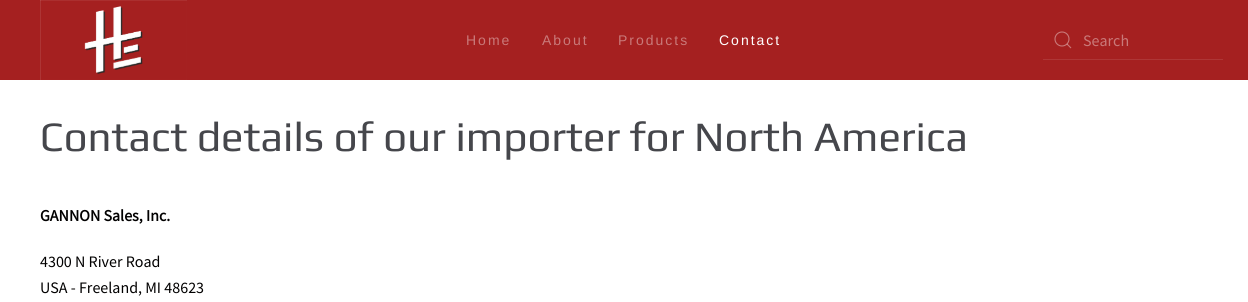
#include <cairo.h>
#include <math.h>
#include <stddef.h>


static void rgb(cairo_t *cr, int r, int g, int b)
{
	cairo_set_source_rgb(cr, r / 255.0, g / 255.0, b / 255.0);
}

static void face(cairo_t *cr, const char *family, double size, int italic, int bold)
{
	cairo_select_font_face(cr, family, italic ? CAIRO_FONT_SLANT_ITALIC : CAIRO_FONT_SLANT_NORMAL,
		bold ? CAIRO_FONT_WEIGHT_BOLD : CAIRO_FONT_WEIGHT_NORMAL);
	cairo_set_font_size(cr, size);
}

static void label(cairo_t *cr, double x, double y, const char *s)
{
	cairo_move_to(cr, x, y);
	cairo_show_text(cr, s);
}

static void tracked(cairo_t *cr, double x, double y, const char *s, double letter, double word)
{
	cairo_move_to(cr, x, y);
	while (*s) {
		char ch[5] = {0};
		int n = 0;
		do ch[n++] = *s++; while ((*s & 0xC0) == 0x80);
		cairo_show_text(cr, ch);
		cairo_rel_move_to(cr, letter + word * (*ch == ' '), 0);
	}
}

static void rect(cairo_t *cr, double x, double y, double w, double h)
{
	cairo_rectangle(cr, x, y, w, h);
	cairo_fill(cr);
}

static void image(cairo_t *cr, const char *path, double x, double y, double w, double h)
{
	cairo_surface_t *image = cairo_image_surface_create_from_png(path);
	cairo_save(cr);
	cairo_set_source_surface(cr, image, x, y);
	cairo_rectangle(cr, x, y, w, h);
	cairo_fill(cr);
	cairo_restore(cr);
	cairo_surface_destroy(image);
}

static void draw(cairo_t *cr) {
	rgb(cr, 255, 255, 255);
	cairo_paint(cr);
	rgb(cr, 165, 32, 32);
	rect(cr, 0, 0, 1248, 80);
	image(cr, "image0.png", 40, 0, 147, 80);
	face(cr, "Liberation Sans", 14, 0, 0);
	rgb(cr, 201, 121, 121);
	tracked(cr, 466, 45, "Home", 2, 0);
	tracked(cr, 542, 45, "About", 2, 0);
	tracked(cr, 618, 45, "Products", 2, 0);
	rgb(cr, 255, 255, 255);
	tracked(cr, 719, 45, "Contact", 2, 0);
	cairo_new_path(cr);
	cairo_arc(cr, 1062, 39, 7, 0, 2 * M_PI);
	rgb(cr, 201, 121, 121);
	cairo_set_line_width(cr, 1.1);
	cairo_stroke(cr);
	cairo_new_path(cr);
	cairo_move_to(cr, 1067, 44);
	cairo_line_to(cr, 1071, 48);
	cairo_close_path(cr);
	cairo_set_source_rgba(cr, 1, 1, 1, 0.4);
	cairo_stroke(cr);
	rgb(cr, 174, 54, 54);
	rect(cr, 1043, 59, 180, 1);
	face(cr, "Source Sans Pro", 16, 0, 0);
	rgb(cr, 201, 121, 121);
	label(cr, 1083, 46, "Search");
	face(cr, "Play", 42, 0, 0);
	rgb(cr, 69, 70, 75);
	label(cr, 40, 151, "Contact details of our importer for North America");
	face(cr, "Source Sans Pro", 16, 0, 1);
	rgb(cr, 1, 0, 0);
	label(cr, 40, 221, "GANNON Sales, Inc.");
	face(cr, "Source Sans Pro", 16, 0, 0);
	label(cr, 40, 267, "4300 N River Road");
	label(cr, 40, 293, "USA - Freeland, MI 48623");
}

int main(void) {
	cairo_surface_t *surface = cairo_image_surface_create(CAIRO_FORMAT_RGB24, 1248, 302);
	cairo_t *cr = cairo_create(surface);
	cairo_font_options_t *options = cairo_font_options_create();
	cairo_font_options_set_hint_metrics(options, CAIRO_HINT_METRICS_OFF);
	cairo_font_options_set_hint_style(options, CAIRO_HINT_STYLE_NONE);
	cairo_set_font_options(cr, options);
	cairo_set_miter_limit(cr, 4);
	draw(cr);
	cairo_surface_write_to_png(surface, "render.png");
	cairo_font_options_destroy(options);
	cairo_destroy(cr);
	cairo_surface_destroy(surface);
	return 0;
}
